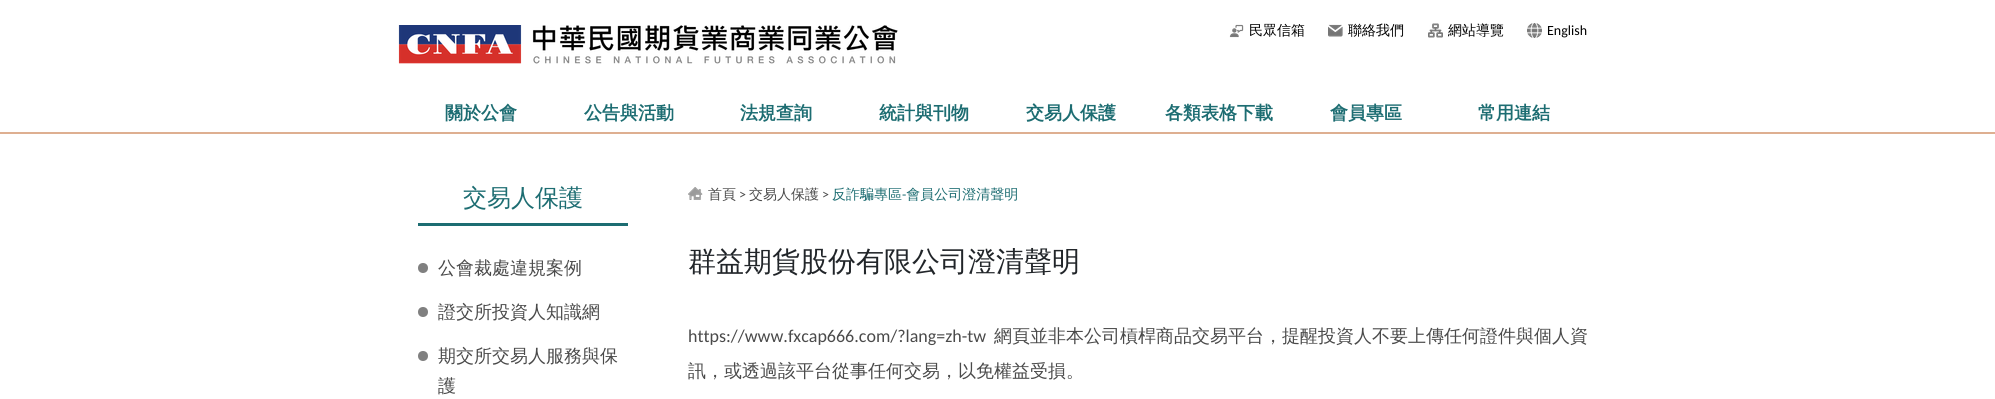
#include <cairo.h>
#include <math.h>
#include <stddef.h>


static void rgb(cairo_t *cr, int r, int g, int b)
{
	cairo_set_source_rgb(cr, r / 255.0, g / 255.0, b / 255.0);
}

static void face(cairo_t *cr, const char *family, double size, int italic, int bold)
{
	cairo_select_font_face(cr, family, italic ? CAIRO_FONT_SLANT_ITALIC : CAIRO_FONT_SLANT_NORMAL,
		bold ? CAIRO_FONT_WEIGHT_BOLD : CAIRO_FONT_WEIGHT_NORMAL);
	cairo_set_font_size(cr, size);
}

static void label(cairo_t *cr, double x, double y, const char *s)
{
	cairo_move_to(cr, x, y);
	cairo_show_text(cr, s);
}

static void rect(cairo_t *cr, double x, double y, double w, double h)
{
	cairo_rectangle(cr, x, y, w, h);
	cairo_fill(cr);
}

static void image(cairo_t *cr, const char *path, double x, double y, double w, double h)
{
	cairo_surface_t *image = cairo_image_surface_create_from_png(path);
	cairo_save(cr);
	cairo_set_source_surface(cr, image, x, y);
	cairo_rectangle(cr, x, y, w, h);
	cairo_fill(cr);
	cairo_restore(cr);
	cairo_surface_destroy(image);
}

static void draw(cairo_t *cr) {
	rgb(cr, 255, 255, 255);
	cairo_paint(cr);
	rgb(cr, 222, 175, 145);
	rect(cr, 0, 132, 1995, 2);
	image(cr, "image0.png", 1229, 24, 15, 14);
	face(cr, "WenQuanYi Zen Hei Medium", 14, 0, 0);
	rgb(cr, 0, 0, 0);
	label(cr, 1249, 35, "民眾信箱");
	image(cr, "image1.png", 1328, 24, 15, 13);
	label(cr, 1348, 35, "聯絡我們");
	image(cr, "image2.png", 1428, 23, 15, 15);
	label(cr, 1448, 35, "網站導覽");
	image(cr, "image3.png", 1527, 23, 15, 15);
	face(cr, "Carlito", 14, 0, 0);
	label(cr, 1547, 35, "English");
	face(cr, "WenQuanYi Zen Hei", 18, 0, 1);
	rgb(cr, 29, 109, 114);
	label(cr, 445, 119, "關於公會");
	label(cr, 584, 119, "公告與活動");
	label(cr, 740, 119, "法規查詢");
	label(cr, 879, 119, "統計與刊物");
	label(cr, 1026, 119, "交易人保護");
	label(cr, 1165, 119, "各類表格下載");
	label(cr, 1330, 119, "會員專區");
	label(cr, 1478, 119, "常用連結");
	image(cr, "image4.png", 398, 25, 500, 39);
	face(cr, "WenQuanYi Zen Hei Medium", 24, 0, 0);
	label(cr, 463, 206, "交易人保護");
	rect(cr, 418, 223, 210, 3);
	rgb(cr, 128, 128, 128);
	cairo_new_path(cr);
	cairo_arc(cr, 423, 268, 5, 0, 2 * M_PI);
	cairo_fill(cr);
	face(cr, "WenQuanYi Zen Hei Medium", 18, 0, 0);
	rgb(cr, 74, 74, 74);
	label(cr, 438, 274, "公會裁處違規案例");
	rgb(cr, 128, 128, 128);
	cairo_new_path(cr);
	cairo_arc(cr, 423, 312, 5, 0, 2 * M_PI);
	cairo_fill(cr);
	rgb(cr, 74, 74, 74);
	label(cr, 438, 318, "證交所投資人知識網");
	rgb(cr, 128, 128, 128);
	cairo_new_path(cr);
	cairo_arc(cr, 423, 356, 5, 0, 2 * M_PI);
	cairo_fill(cr);
	rgb(cr, 74, 74, 74);
	label(cr, 438, 362, "期交所交易人服務與保");
	label(cr, 438, 392, "護");
	image(cr, "image5.png", 688, 187, 15, 13);
	face(cr, "WenQuanYi Zen Hei Medium", 14, 0, 0);
	label(cr, 708, 199, "首頁");
	face(cr, "Carlito", 14, 0, 0);
	label(cr, 739, 199, ">");
	face(cr, "WenQuanYi Zen Hei Medium", 14, 0, 0);
	label(cr, 749, 199, "交易人保護");
	face(cr, "Carlito", 14, 0, 0);
	label(cr, 822, 199, ">");
	face(cr, "WenQuanYi Zen Hei Medium", 14, 0, 0);
	rgb(cr, 29, 109, 114);
	label(cr, 832, 199, "反詐騙專區 會員公司澄清聲明");
	face(cr, "Carlito", 14, 0, 0);
	label(cr, 902, 199, "-");
	face(cr, "WenQuanYi Zen Hei Medium", 28, 0, 0);
	rgb(cr, 33, 37, 41);
	label(cr, 688, 271, "群益期貨股份有限公司澄清聲明");
	face(cr, "Carlito", 18, 0, 0);
	rgb(cr, 74, 74, 74);
	label(cr, 688, 342, "https://www.fxcap666.com/?lang=zh-tw");
	face(cr, "WenQuanYi Zen Hei Medium", 18, 0, 0);
	label(cr, 994, 342, "網頁並非本公司槓桿商品交易平台，提醒投資人不要上傳任何證件與個人資");
	label(cr, 688, 377, "訊，或透過該平台從事任何交易，以免權益受損。");
}

int main(void) {
	cairo_surface_t *surface = cairo_image_surface_create(CAIRO_FORMAT_RGB24, 1995, 399);
	cairo_t *cr = cairo_create(surface);
	cairo_font_options_t *options = cairo_font_options_create();
	cairo_font_options_set_hint_metrics(options, CAIRO_HINT_METRICS_OFF);
	cairo_font_options_set_hint_style(options, CAIRO_HINT_STYLE_NONE);
	cairo_set_font_options(cr, options);
	cairo_set_miter_limit(cr, 4);
	draw(cr);
	cairo_surface_write_to_png(surface, "render.png");
	cairo_font_options_destroy(options);
	cairo_destroy(cr);
	cairo_surface_destroy(surface);
	return 0;
}
